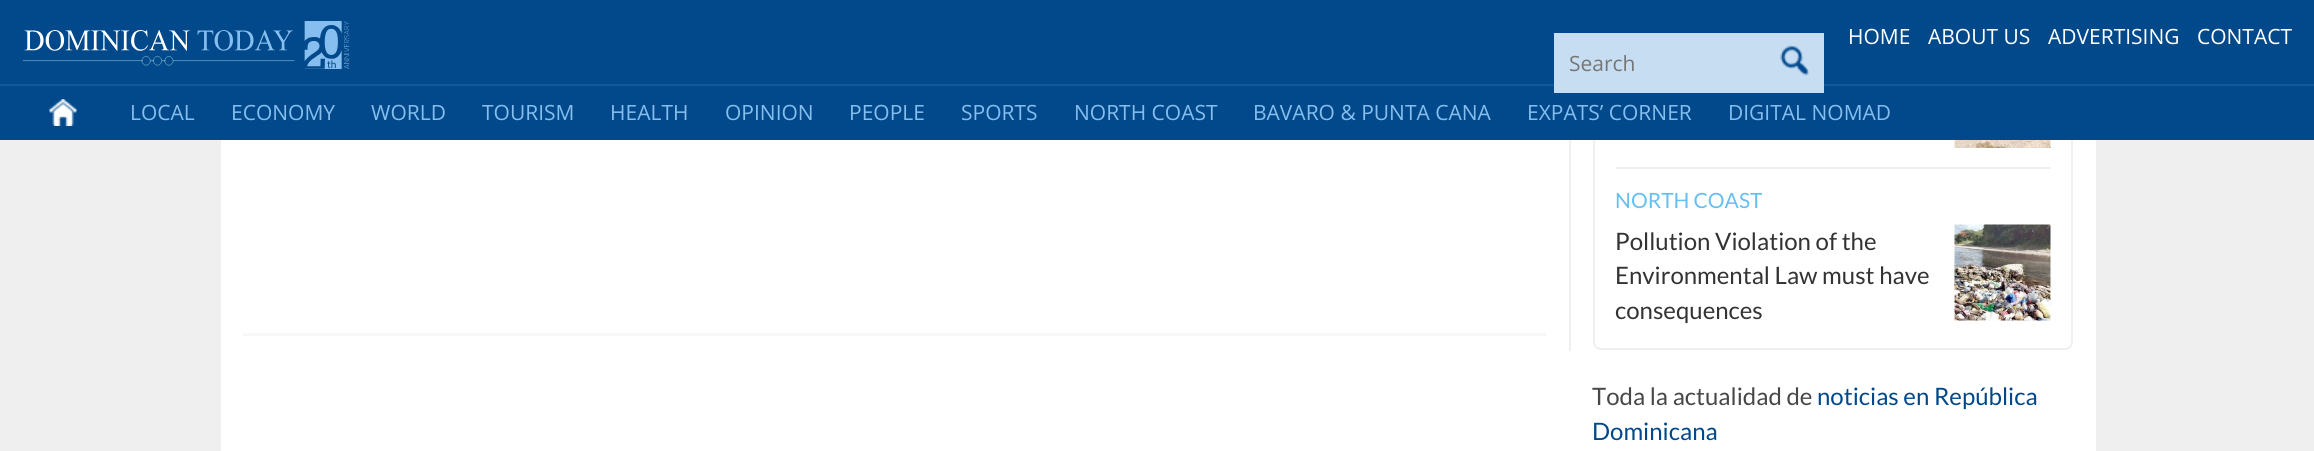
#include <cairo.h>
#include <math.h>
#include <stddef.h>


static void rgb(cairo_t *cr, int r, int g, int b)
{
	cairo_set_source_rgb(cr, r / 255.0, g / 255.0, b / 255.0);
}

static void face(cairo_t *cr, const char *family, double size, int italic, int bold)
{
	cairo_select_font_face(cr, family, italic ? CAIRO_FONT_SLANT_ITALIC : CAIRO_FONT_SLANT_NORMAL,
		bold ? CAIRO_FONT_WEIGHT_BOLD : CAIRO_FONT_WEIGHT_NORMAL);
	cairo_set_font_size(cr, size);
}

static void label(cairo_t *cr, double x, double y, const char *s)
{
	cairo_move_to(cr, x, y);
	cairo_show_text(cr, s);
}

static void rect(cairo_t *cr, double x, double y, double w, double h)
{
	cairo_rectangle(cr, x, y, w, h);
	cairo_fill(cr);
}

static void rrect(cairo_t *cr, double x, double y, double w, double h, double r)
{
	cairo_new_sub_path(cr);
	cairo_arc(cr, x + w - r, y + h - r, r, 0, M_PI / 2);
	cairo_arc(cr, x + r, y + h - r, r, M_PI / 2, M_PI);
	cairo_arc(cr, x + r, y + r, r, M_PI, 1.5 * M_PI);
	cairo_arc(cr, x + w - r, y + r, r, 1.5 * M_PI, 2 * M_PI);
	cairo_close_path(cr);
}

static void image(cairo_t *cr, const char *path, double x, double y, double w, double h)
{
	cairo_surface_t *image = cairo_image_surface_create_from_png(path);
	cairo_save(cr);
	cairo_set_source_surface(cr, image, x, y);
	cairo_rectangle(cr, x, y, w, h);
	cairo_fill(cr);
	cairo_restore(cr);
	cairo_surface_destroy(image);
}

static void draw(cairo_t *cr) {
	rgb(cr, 239, 239, 239);
	cairo_paint(cr);
	rgb(cr, 255, 255, 255);
	rect(cr, 221, 140, 1875, 311);
	rrect(cr, 1594, -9, 478, 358, 7);
	rgb(cr, 239, 239, 239);
	cairo_stroke(cr);
	rgb(cr, 1, 73, 138);
	rect(cr, 0, 0, 2314, 140);
	image(cr, "image0.png", 23, 21, 327, 48);
	face(cr, "Open Sans", 21, 0, 0);
	rgb(cr, 255, 255, 255);
	label(cr, 1848, 44, "HOME");
	label(cr, 1928, 44, "ABOUT US");
	label(cr, 2048, 44, "ADVERTISING");
	label(cr, 2197, 44, "CONTACT");
	rgb(cr, 15, 89, 154);
	rect(cr, 0, 84, 2314, 2);
	rgb(cr, 199, 222, 242);
	rect(cr, 1554, 33, 270, 60);
	rgb(cr, 117, 117, 117);
	label(cr, 1569, 71, "Search");
	image(cr, "image1.png", 1780, 45, 29, 31);
	image(cr, "image2.png", 49, 99, 28, 27);
	rgb(cr, 133, 190, 238);
	label(cr, 130, 120, "LOCAL");
	label(cr, 231, 120, "ECONOMY");
	label(cr, 371, 120, "WORLD");
	label(cr, 482, 120, "TOURISM");
	label(cr, 610, 120, "HEALTH");
	label(cr, 725, 120, "OPINION");
	label(cr, 849, 120, "PEOPLE");
	label(cr, 961, 120, "SPORTS");
	label(cr, 1074, 120, "NORTH COAST");
	label(cr, 1253, 120, "BAVARO & PUNTA CANA");
	label(cr, 1527, 120, "EXPATS’ CORNER");
	label(cr, 1728, 120, "DIGITAL NOMAD");
	rgb(cr, 239, 239, 239);
	rect(cr, 1569, 140, 2, 211);
	rgb(cr, 248, 248, 248);
	rect(cr, 243, 333, 1304, 3);
	rgb(cr, 239, 239, 239);
	rect(cr, 1616, 167, 435, 2);
	image(cr, "image3.png", 1954, 140, 97, 8);
	face(cr, "Lato", 21, 0, 0);
	rgb(cr, 101, 191, 241);
	label(cr, 1615, 208, "NORTH COAST");
	face(cr, "Lato", 24, 0, 0);
	rgb(cr, 51, 51, 51);
	label(cr, 1615, 250, "Pollution Violation of the");
	image(cr, "image4.png", 1954, 224, 97, 97);
	label(cr, 1615, 284, "Environmental Law must have");
	label(cr, 1615, 319, "consequences");
	rgb(cr, 71, 71, 71);
	label(cr, 1592, 405, "Toda la actualidad de");
	rgb(cr, 0, 72, 138);
	label(cr, 1817, 405, "noticias en República");
	label(cr, 1592, 440, "Dominicana");
}

int main(void) {
	cairo_surface_t *surface = cairo_image_surface_create(CAIRO_FORMAT_RGB24, 2314, 451);
	cairo_t *cr = cairo_create(surface);
	cairo_font_options_t *options = cairo_font_options_create();
	cairo_font_options_set_hint_metrics(options, CAIRO_HINT_METRICS_OFF);
	cairo_font_options_set_hint_style(options, CAIRO_HINT_STYLE_NONE);
	cairo_set_font_options(cr, options);
	cairo_set_miter_limit(cr, 4);
	draw(cr);
	cairo_surface_write_to_png(surface, "render.png");
	cairo_font_options_destroy(options);
	cairo_destroy(cr);
	cairo_surface_destroy(surface);
	return 0;
}
